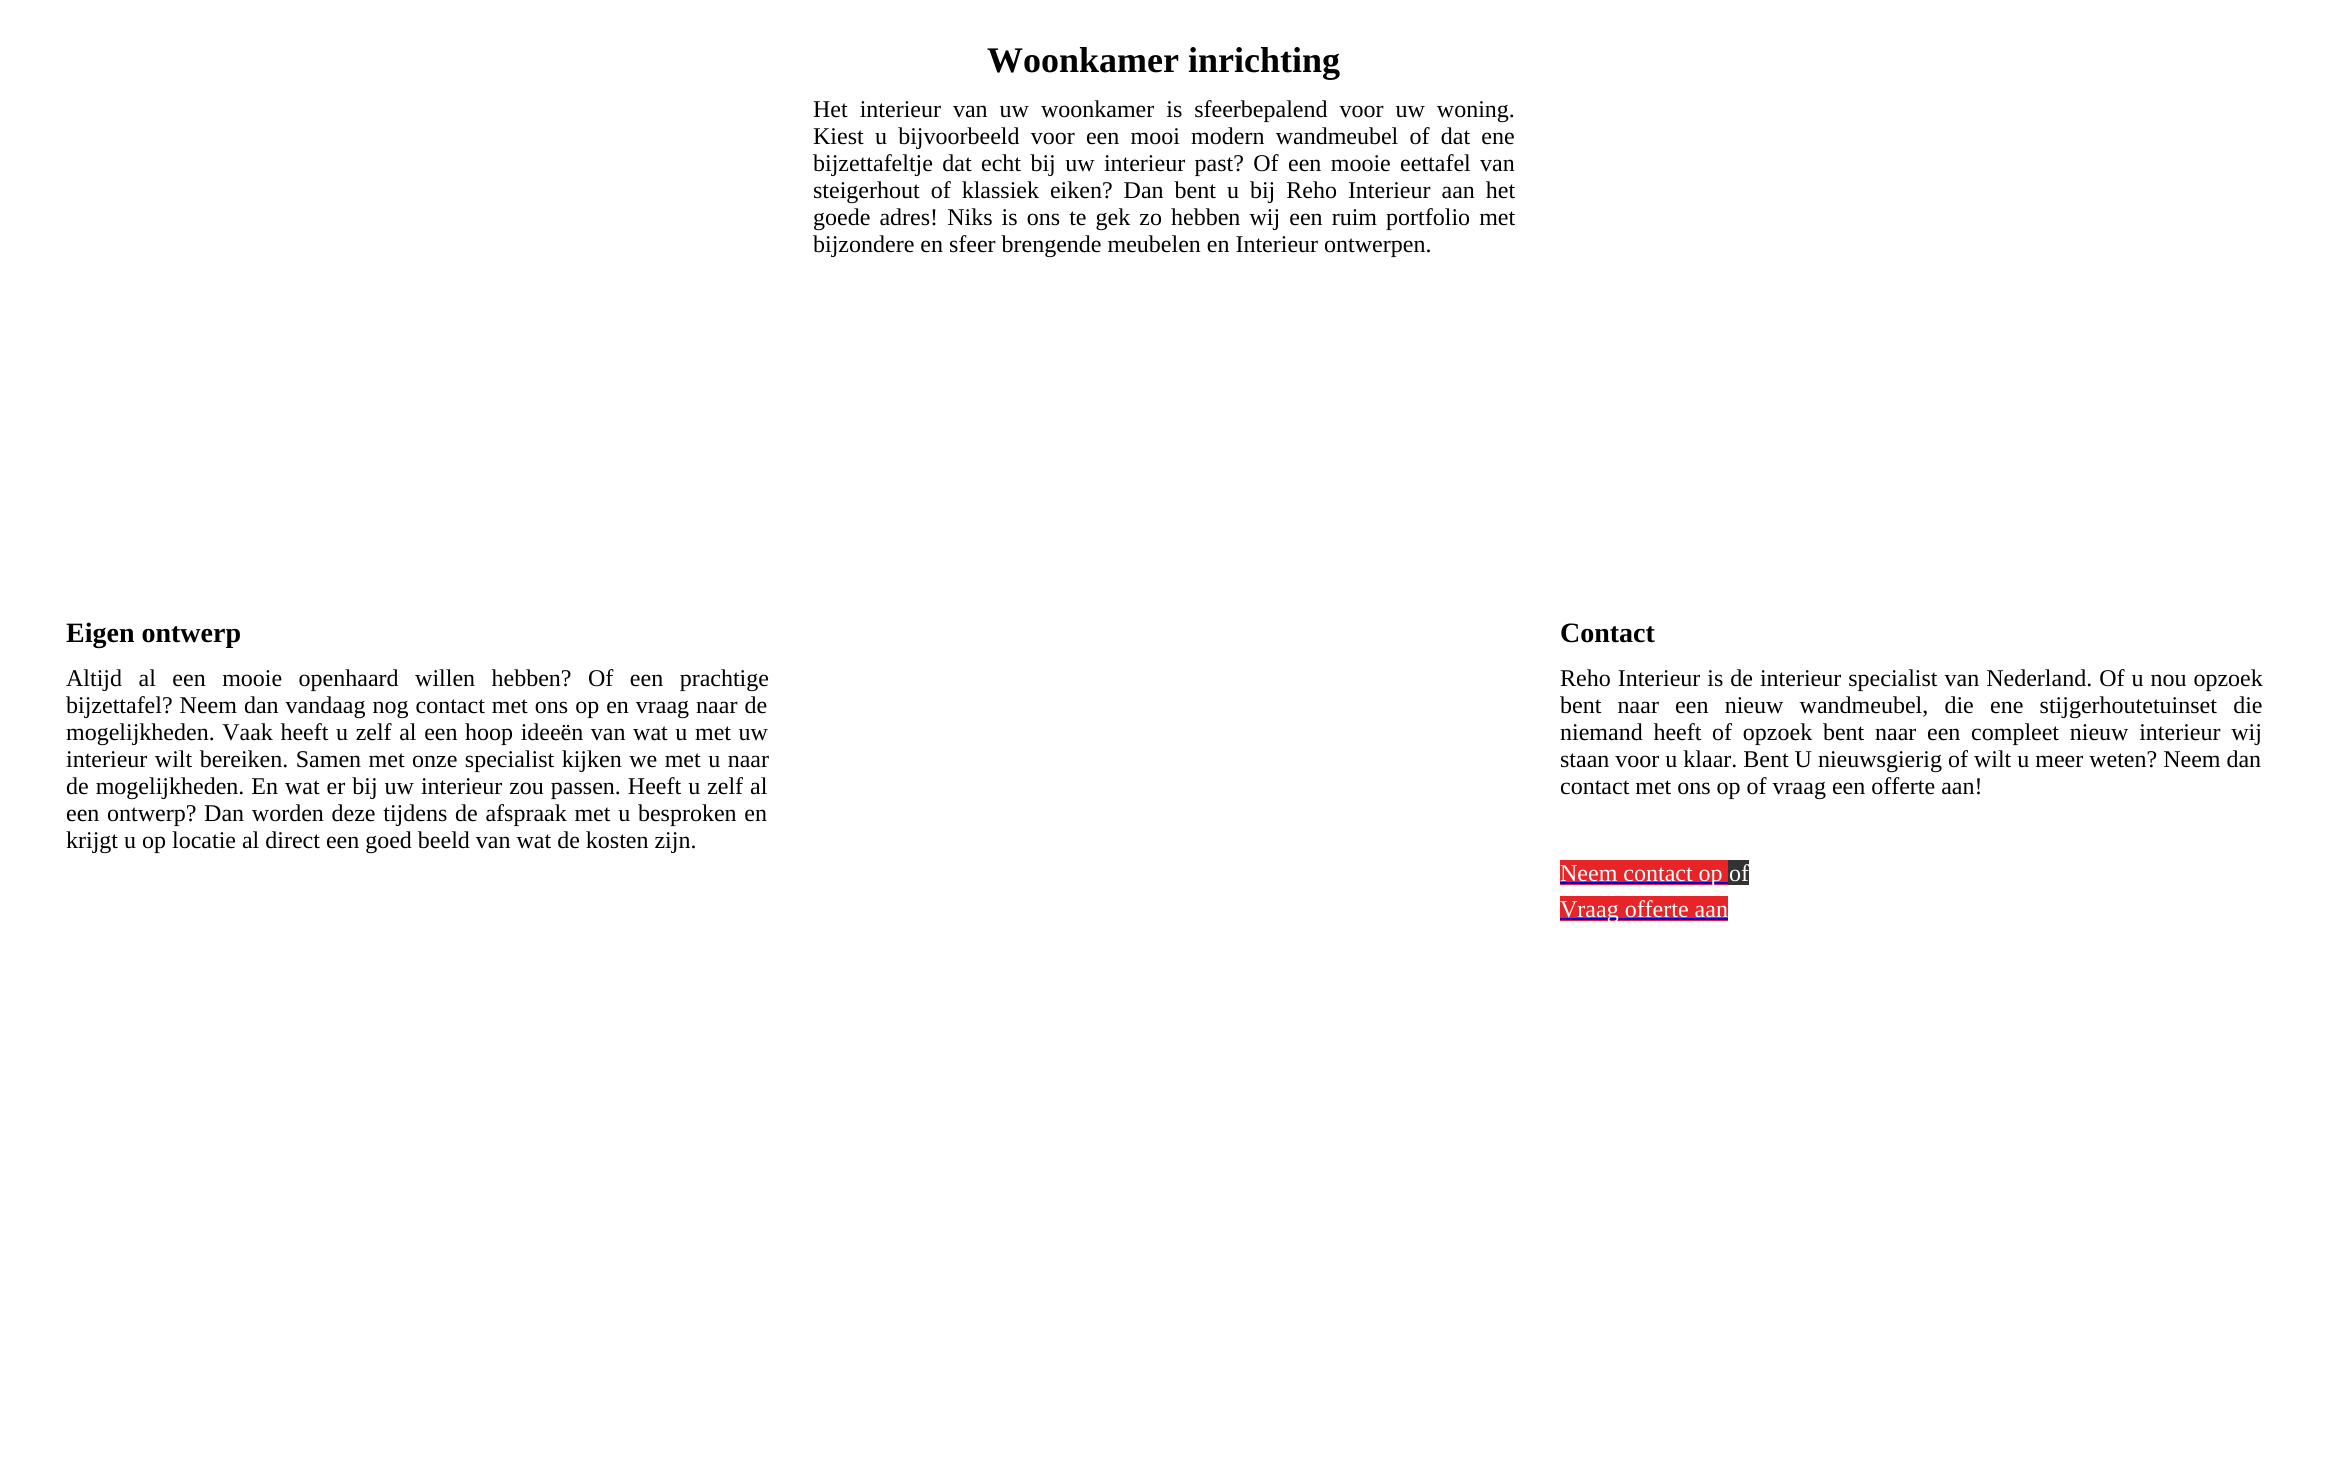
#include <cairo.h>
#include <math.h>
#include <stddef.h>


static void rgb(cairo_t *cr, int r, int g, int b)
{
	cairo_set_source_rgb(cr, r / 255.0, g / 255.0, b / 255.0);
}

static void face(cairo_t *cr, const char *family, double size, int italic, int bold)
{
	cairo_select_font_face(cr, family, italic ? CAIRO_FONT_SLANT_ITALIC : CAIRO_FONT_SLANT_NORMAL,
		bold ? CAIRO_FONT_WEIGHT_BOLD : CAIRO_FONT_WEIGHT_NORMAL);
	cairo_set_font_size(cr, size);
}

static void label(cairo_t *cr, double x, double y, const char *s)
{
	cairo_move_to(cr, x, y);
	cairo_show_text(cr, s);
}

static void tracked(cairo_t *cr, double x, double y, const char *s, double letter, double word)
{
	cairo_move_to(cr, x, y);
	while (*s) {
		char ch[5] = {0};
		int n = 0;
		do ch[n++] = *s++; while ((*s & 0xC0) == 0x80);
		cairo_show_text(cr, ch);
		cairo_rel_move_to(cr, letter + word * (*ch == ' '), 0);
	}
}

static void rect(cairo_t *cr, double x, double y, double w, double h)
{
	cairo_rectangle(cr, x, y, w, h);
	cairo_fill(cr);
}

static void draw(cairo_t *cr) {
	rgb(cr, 255, 255, 255);
	cairo_paint(cr);
	face(cr, "Liberation Serif", 36, 0, 1);
	rgb(cr, 0, 0, 0);
	label(cr, 987, 72, "Woonkamer inrichting");
	face(cr, "Liberation Serif", 24, 0, 0);
	tracked(cr, 813, 117, "Het interieur van uw woonkamer is sfeerbepalend voor uw woning.", 0, 6);
	tracked(cr, 813, 144, "Kiest u bijvoorbeeld voor een mooi modern wandmeubel of dat ene", 0, 5.25);
	tracked(cr, 813, 171, "bijzettafeltje dat echt bij uw interieur past? Of een mooie eettafel van", 0, 3.4);
	tracked(cr, 813, 198, "steigerhout of klassiek eiken? Dan bent u bij Reho Interieur aan het", 0, 5);
	tracked(cr, 813, 225, "goede adres! Niks is ons te gek zo hebben wij een ruim portfolio met", 0, 3.1);
	label(cr, 813, 252, "bijzondere en sfeer brengende meubelen en Interieur ontwerpen.");
	face(cr, "Liberation Serif", 28, 0, 1);
	label(cr, 66, 642, "Eigen ontwerp");
	face(cr, "Liberation Serif", 24, 0, 0);
	tracked(cr, 66, 686, "Altijd al een mooie openhaard willen hebben? Of een prachtige", 0, 10.5);
	tracked(cr, 66, 713, "bijzettafel? Neem dan vandaag nog contact met ons op en vraag naar de", 0, 1);
	tracked(cr, 66, 740, "mogelijkheden. Vaak heeft u zelf al een hoop ideeën van wat u met uw", 0, 1.6);
	tracked(cr, 66, 767, "interieur wilt bereiken. Samen met onze specialist kijken we met u naar", 0, 1.5);
	tracked(cr, 66, 794, "de mogelijkheden. En wat er bij uw interieur zou passen. Heeft u zelf al", 0, 1);
	tracked(cr, 66, 821, "een ontwerp? Dan worden deze tijdens de afspraak met u besproken en", 0, 1.75);
	label(cr, 66, 848, "krijgt u op locatie al direct een goed beeld van wat de kosten zijn.");
	face(cr, "Liberation Serif", 28, 0, 1);
	label(cr, 1560, 642, "Contact");
	face(cr, "Liberation Serif", 24, 0, 0);
	tracked(cr, 1560, 686, "Reho Interieur is de interieur specialist van Nederland. Of u nou opzoek", 0, 1);
	tracked(cr, 1560, 713, "bent naar een nieuw wandmeubel, die ene stijgerhoutetuinset die", 0, 10.25);
	tracked(cr, 1560, 740, "niemand heeft of opzoek bent naar een compleet nieuw interieur wij", 0, 4.75);
	label(cr, 1560, 767, "staan voor u klaar. Bent U nieuwsgierig of wilt u meer weten? Neem dan");
	label(cr, 1560, 794, "contact met ons op of vraag een offerte aan!");
	rgb(cr, 231, 36, 39);
	rect(cr, 1560, 860, 168, 25);
	rgb(cr, 0, 0, 238);
	rect(cr, 1560, 882, 168, 2);
	rgb(cr, 255, 255, 255);
	label(cr, 1560, 881, "Neem contact op");
	rgb(cr, 51, 51, 51);
	rect(cr, 1728, 860, 21, 25);
	rgb(cr, 255, 255, 255);
	label(cr, 1729, 881, "of");
	rgb(cr, 231, 36, 39);
	rect(cr, 1560, 896, 168, 25);
	rgb(cr, 0, 0, 238);
	rect(cr, 1560, 918, 168, 2);
	rgb(cr, 255, 255, 255);
	label(cr, 1560, 917, "Vraag offerte aan");
}

int main(void) {
	cairo_surface_t *surface = cairo_image_surface_create(CAIRO_FORMAT_RGB24, 2327, 1472);
	cairo_t *cr = cairo_create(surface);
	cairo_font_options_t *options = cairo_font_options_create();
	cairo_font_options_set_hint_metrics(options, CAIRO_HINT_METRICS_OFF);
	cairo_font_options_set_hint_style(options, CAIRO_HINT_STYLE_NONE);
	cairo_set_font_options(cr, options);
	cairo_set_miter_limit(cr, 4);
	draw(cr);
	cairo_surface_write_to_png(surface, "render.png");
	cairo_font_options_destroy(options);
	cairo_destroy(cr);
	cairo_surface_destroy(surface);
	return 0;
}
